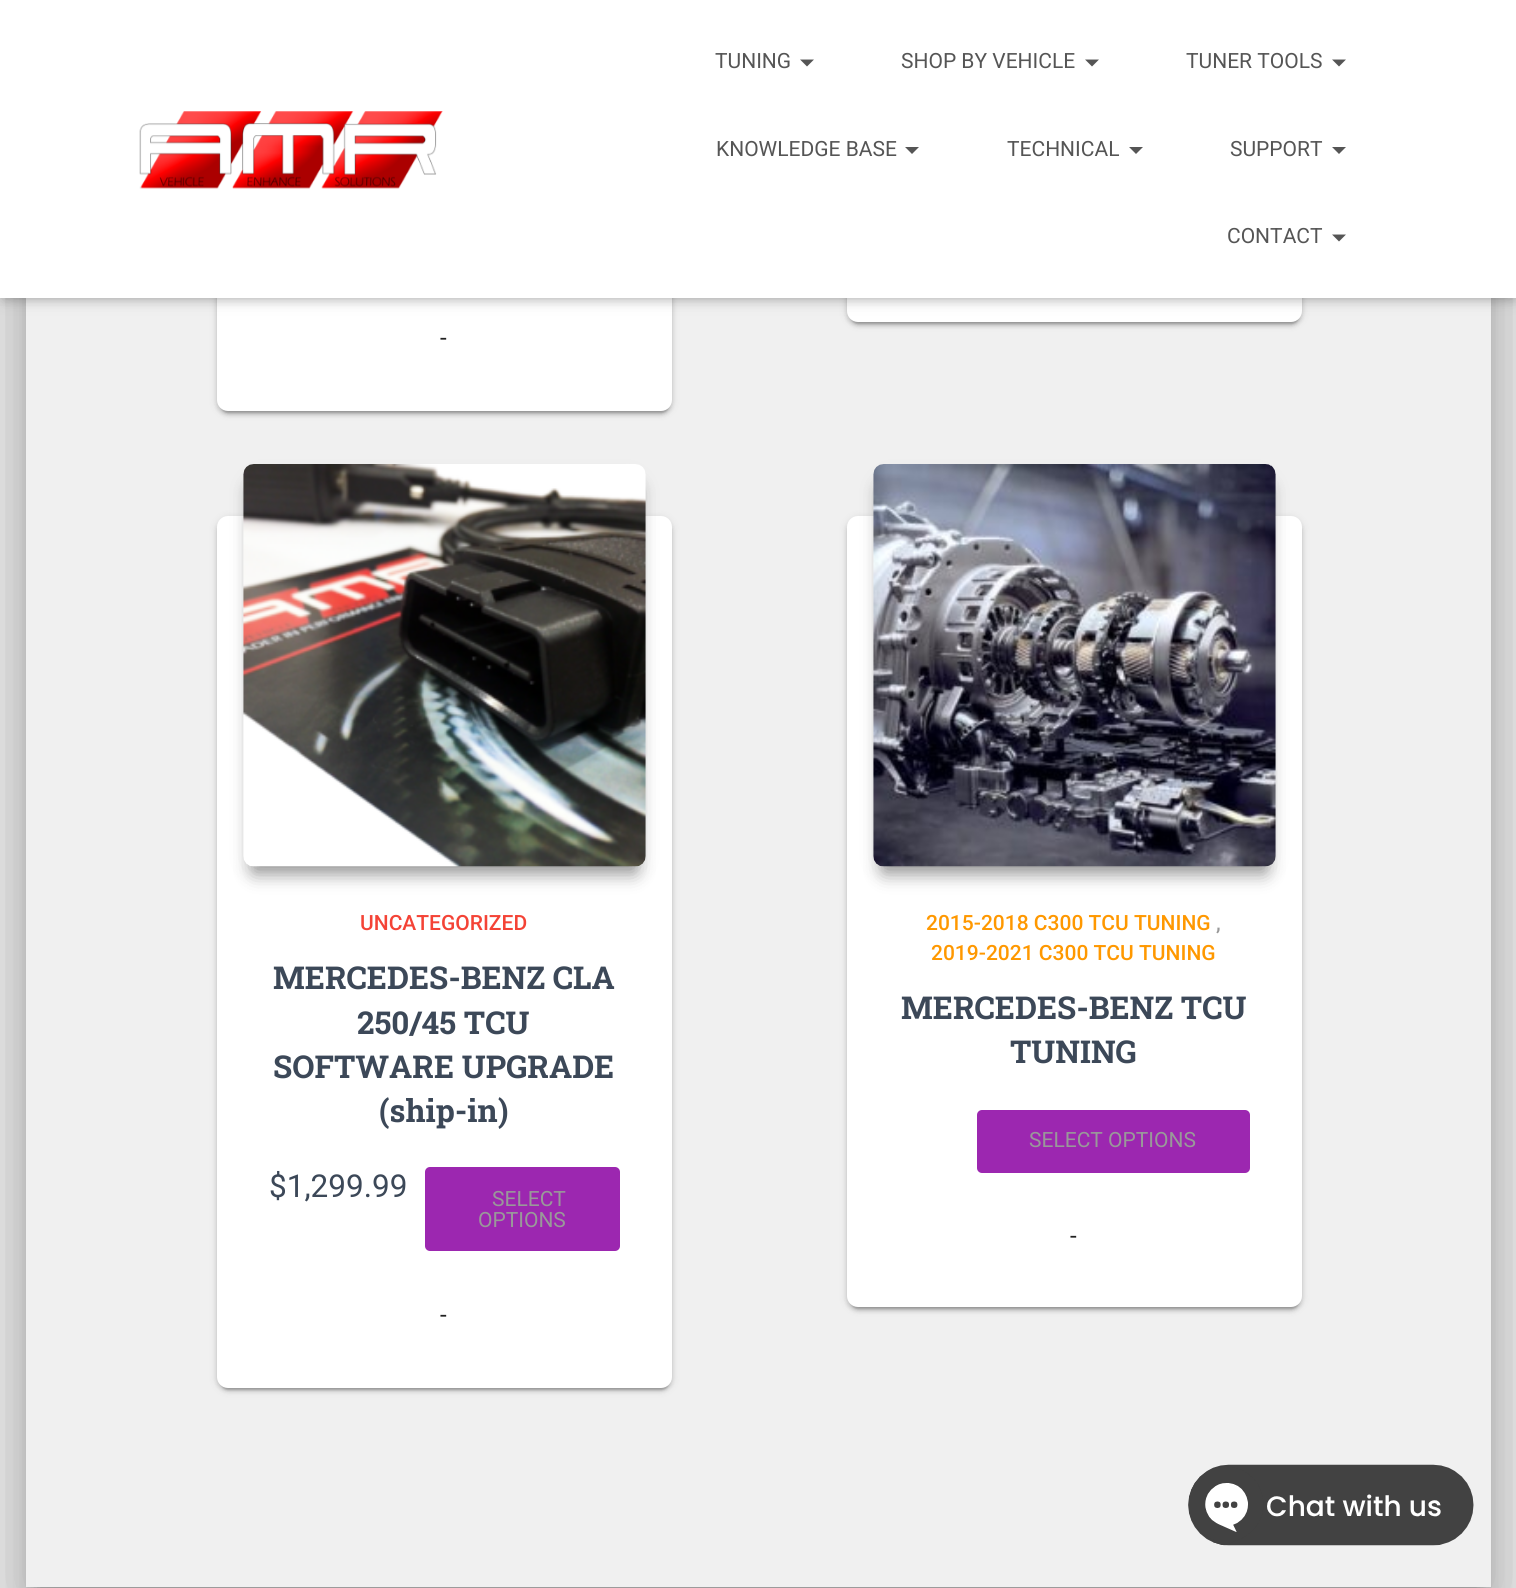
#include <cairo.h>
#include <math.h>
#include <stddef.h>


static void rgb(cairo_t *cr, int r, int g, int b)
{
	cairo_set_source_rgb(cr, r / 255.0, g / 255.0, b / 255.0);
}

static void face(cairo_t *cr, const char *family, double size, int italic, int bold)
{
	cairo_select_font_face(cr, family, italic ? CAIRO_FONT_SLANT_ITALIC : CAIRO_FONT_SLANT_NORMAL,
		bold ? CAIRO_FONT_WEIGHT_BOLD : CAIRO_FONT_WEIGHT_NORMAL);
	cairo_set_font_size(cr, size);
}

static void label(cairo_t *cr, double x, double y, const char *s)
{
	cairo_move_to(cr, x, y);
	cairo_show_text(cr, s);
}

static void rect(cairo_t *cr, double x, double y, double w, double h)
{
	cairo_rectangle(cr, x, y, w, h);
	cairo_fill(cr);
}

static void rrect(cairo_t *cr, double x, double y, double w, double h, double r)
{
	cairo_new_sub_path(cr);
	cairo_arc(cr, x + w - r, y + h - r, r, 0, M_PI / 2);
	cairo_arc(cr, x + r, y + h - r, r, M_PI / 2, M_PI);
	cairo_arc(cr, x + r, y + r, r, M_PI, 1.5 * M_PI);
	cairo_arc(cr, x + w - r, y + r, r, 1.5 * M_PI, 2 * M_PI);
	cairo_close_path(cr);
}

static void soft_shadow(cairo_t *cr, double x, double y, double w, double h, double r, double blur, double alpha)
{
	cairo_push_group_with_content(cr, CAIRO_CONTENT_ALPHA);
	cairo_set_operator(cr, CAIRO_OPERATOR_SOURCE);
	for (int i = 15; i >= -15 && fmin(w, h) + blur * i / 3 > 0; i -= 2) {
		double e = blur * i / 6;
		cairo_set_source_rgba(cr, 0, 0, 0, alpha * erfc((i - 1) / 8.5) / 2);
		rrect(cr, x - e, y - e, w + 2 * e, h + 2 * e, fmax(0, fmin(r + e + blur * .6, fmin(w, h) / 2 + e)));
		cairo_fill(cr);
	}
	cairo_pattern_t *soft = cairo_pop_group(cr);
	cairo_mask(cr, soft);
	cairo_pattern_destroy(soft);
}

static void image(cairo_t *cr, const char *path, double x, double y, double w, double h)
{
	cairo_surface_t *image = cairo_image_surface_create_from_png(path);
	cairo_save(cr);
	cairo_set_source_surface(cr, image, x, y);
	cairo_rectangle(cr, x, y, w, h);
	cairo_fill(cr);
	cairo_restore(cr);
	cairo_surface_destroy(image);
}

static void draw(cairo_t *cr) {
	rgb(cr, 229, 229, 229);
	cairo_paint(cr);
	rgb(cr, 0, 0, 0);
	soft_shadow(cr, 35, -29, 1447, 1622, 2, 9, 0.2);
	soft_shadow(cr, 18, -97, 1482, 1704, 19, 26, 0.12);
	soft_shadow(cr, 23, -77, 1472, 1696, 14, 21, 0.14);
	rgb(cr, 240, 240, 240);
	rect(cr, 26, 298, 1465, 1289);
	rgb(cr, 0, 0, 0);
	soft_shadow(cr, 217, -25, 455, 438, 11, 4.5, 0.12);
	soft_shadow(cr, 221, -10, 448, 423, 7, 1, 0.2);
	soft_shadow(cr, 217, -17, 455, 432, 11, 2, 0.14);
	rgb(cr, 255, 255, 255);
	rrect(cr, 217, -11, 455, 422, 11);
	cairo_fill(cr);
	rgb(cr, 0, 0, 0);
	soft_shadow(cr, 847, -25, 455, 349, 11, 4.5, 0.12);
	soft_shadow(cr, 851, -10, 448, 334, 7, 1, 0.2);
	soft_shadow(cr, 847, -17, 455, 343, 11, 2, 0.14);
	rgb(cr, 255, 255, 255);
	rrect(cr, 847, -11, 455, 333, 11);
	cairo_fill(cr);
	rgb(cr, 0, 0, 0);
	soft_shadow(cr, 4, 11, 1510, 290, 0, 4.5, 0.1);
	soft_shadow(cr, 0, 2, 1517, 297, 0, 9, 0.12);
	soft_shadow(cr, 11, 12, 1496, 277, 0, 9, 0.42);
	rgb(cr, 255, 255, 255);
	rect(cr, 0, 0, 1516, 298);
	image(cr, "image0.png", 139, 111, 304, 78);
	face(cr, "Roboto", 21, 0, 0);
	rgb(cr, 85, 85, 85);
	label(cr, 715, 68, "TUNING");
	cairo_new_path(cr);
	cairo_move_to(cr, 800, 59.5);
	cairo_line_to(cr, 814, 59.5);
	cairo_line_to(cr, 807, 66.5);
	cairo_close_path(cr);
	cairo_fill(cr);
	label(cr, 901, 68, "SHOP BY VEHICLE");
	cairo_new_path(cr);
	cairo_move_to(cr, 1085, 59.5);
	cairo_line_to(cr, 1099, 59.5);
	cairo_line_to(cr, 1092, 66.5);
	cairo_close_path(cr);
	cairo_fill(cr);
	label(cr, 1186, 68, "TUNER TOOLS");
	cairo_new_path(cr);
	cairo_move_to(cr, 1332, 59.5);
	cairo_line_to(cr, 1346, 59.5);
	cairo_line_to(cr, 1339, 66.5);
	cairo_close_path(cr);
	cairo_fill(cr);
	label(cr, 716, 156, "KNOWLEDGE BASE");
	cairo_new_path(cr);
	cairo_move_to(cr, 905, 147);
	cairo_line_to(cr, 919, 147);
	cairo_line_to(cr, 912, 154);
	cairo_close_path(cr);
	cairo_fill(cr);
	label(cr, 1007, 156, "TECHNICAL");
	cairo_new_path(cr);
	cairo_move_to(cr, 1129, 147);
	cairo_line_to(cr, 1143, 147);
	cairo_line_to(cr, 1136, 154);
	cairo_close_path(cr);
	cairo_fill(cr);
	label(cr, 1230, 156, "SUPPORT");
	cairo_new_path(cr);
	cairo_move_to(cr, 1332, 147);
	cairo_line_to(cr, 1346, 147);
	cairo_line_to(cr, 1339, 154);
	cairo_close_path(cr);
	cairo_fill(cr);
	label(cr, 1227, 243, "CONTACT");
	cairo_new_path(cr);
	cairo_move_to(cr, 1332, 234.5);
	cairo_line_to(cr, 1346, 234.5);
	cairo_line_to(cr, 1339, 241.5);
	cairo_close_path(cr);
	cairo_fill(cr);
	face(cr, "Roboto", 24, 0, 0);
	rgb(cr, 33, 33, 33);
	label(cr, 440, 346, "-");
	rgb(cr, 0, 0, 0);
	soft_shadow(cr, 217, 518, 455, 872, 11, 4.5, 0.12);
	soft_shadow(cr, 221, 525, 448, 865, 7, 1, 0.2);
	soft_shadow(cr, 217, 520, 455, 871, 11, 2, 0.14);
	rgb(cr, 255, 255, 255);
	rrect(cr, 217, 516, 455, 872, 11);
	cairo_fill(cr);
	rgb(cr, 0, 0, 0);
	soft_shadow(cr, 252, 490, 385, 385, 2, 9, 0.2);
	soft_shadow(cr, 252, 487, 385, 385, 2, 9, 0.2);
	soft_shadow(cr, 257, 487, 375, 374, 0, 13, 0.24);
	image(cr, "image1.png", 243, 464, 403, 403);
	face(cr, "Roboto Medium", 21, 0, 0);
	rgb(cr, 244, 67, 54);
	label(cr, 360, 930, "UNCATEGORIZED");
	face(cr, "Roboto Slab", 31.5, 0, 1);
	rgb(cr, 60, 72, 88);
	label(cr, 273, 989, "MERCEDES-BENZ CLA");
	label(cr, 357, 1034, "250/45 TCU");
	label(cr, 273, 1078, "SOFTWARE UPGRADE");
	label(cr, 379, 1122, "(ship-in)");
	face(cr, "Roboto", 31.5, 0, 0);
	label(cr, 269, 1197, "$1,299.99");
	rgb(cr, 156, 39, 176);
	rrect(cr, 425, 1167, 195, 84, 5);
	cairo_fill(cr);
	face(cr, "Roboto", 21, 0, 0);
	rgb(cr, 153, 153, 153);
	label(cr, 492, 1206, "SELECT");
	label(cr, 478, 1227, "OPTIONS");
	face(cr, "Roboto", 24, 0, 0);
	rgb(cr, 33, 33, 33);
	label(cr, 440, 1323, "-");
	rgb(cr, 0, 0, 0);
	soft_shadow(cr, 847, 518, 455, 791, 11, 4.5, 0.12);
	soft_shadow(cr, 851, 525, 448, 784, 7, 1, 0.2);
	soft_shadow(cr, 847, 520, 455, 791, 11, 2, 0.14);
	rgb(cr, 255, 255, 255);
	rrect(cr, 847, 516, 455, 791, 11);
	cairo_fill(cr);
	rgb(cr, 0, 0, 0);
	soft_shadow(cr, 882, 490, 385, 385, 2, 9, 0.2);
	soft_shadow(cr, 882, 487, 385, 385, 2, 9, 0.2);
	soft_shadow(cr, 887, 487, 375, 374, 0, 13, 0.24);
	image(cr, "image2.png", 873, 464, 403, 403);
	face(cr, "Roboto Medium", 21, 0, 0);
	rgb(cr, 255, 152, 0);
	label(cr, 926, 930, "2015-2018 C300 TCU TUNING");
	rgb(cr, 153, 153, 153);
	label(cr, 1216, 930, ",");
	rgb(cr, 255, 152, 0);
	label(cr, 931, 960, "2019-2021 C300 TCU TUNING");
	face(cr, "Roboto Slab", 31.5, 0, 1);
	rgb(cr, 60, 72, 88);
	label(cr, 901, 1019, "MERCEDES-BENZ TCU");
	label(cr, 1010, 1063, "TUNING");
	rgb(cr, 156, 39, 176);
	rrect(cr, 977, 1110, 273, 63, 5);
	cairo_fill(cr);
	face(cr, "Roboto", 21, 0, 0);
	rgb(cr, 153, 153, 153);
	label(cr, 1029, 1147, "SELECT OPTIONS");
	face(cr, "Roboto", 24, 0, 0);
	rgb(cr, 33, 33, 33);
	label(cr, 1070, 1244, "-");
	image(cr, "image3.png", 1188, 1464, 286, 82);
}

int main(void) {
	cairo_surface_t *surface = cairo_image_surface_create(CAIRO_FORMAT_RGB24, 1516, 1588);
	cairo_t *cr = cairo_create(surface);
	cairo_font_options_t *options = cairo_font_options_create();
	cairo_font_options_set_hint_metrics(options, CAIRO_HINT_METRICS_OFF);
	cairo_font_options_set_hint_style(options, CAIRO_HINT_STYLE_NONE);
	cairo_set_font_options(cr, options);
	cairo_set_miter_limit(cr, 4);
	draw(cr);
	cairo_surface_write_to_png(surface, "render.png");
	cairo_font_options_destroy(options);
	cairo_destroy(cr);
	cairo_surface_destroy(surface);
	return 0;
}
